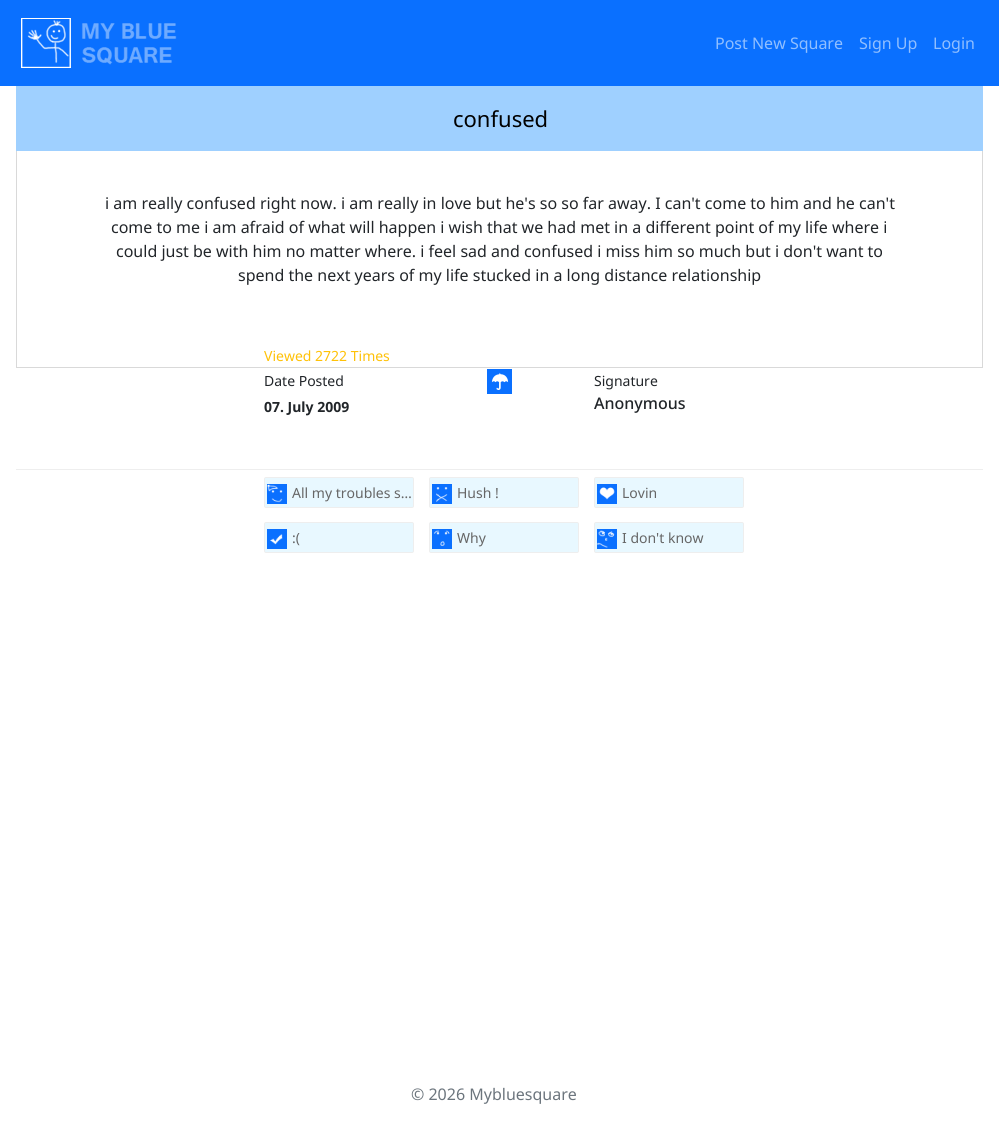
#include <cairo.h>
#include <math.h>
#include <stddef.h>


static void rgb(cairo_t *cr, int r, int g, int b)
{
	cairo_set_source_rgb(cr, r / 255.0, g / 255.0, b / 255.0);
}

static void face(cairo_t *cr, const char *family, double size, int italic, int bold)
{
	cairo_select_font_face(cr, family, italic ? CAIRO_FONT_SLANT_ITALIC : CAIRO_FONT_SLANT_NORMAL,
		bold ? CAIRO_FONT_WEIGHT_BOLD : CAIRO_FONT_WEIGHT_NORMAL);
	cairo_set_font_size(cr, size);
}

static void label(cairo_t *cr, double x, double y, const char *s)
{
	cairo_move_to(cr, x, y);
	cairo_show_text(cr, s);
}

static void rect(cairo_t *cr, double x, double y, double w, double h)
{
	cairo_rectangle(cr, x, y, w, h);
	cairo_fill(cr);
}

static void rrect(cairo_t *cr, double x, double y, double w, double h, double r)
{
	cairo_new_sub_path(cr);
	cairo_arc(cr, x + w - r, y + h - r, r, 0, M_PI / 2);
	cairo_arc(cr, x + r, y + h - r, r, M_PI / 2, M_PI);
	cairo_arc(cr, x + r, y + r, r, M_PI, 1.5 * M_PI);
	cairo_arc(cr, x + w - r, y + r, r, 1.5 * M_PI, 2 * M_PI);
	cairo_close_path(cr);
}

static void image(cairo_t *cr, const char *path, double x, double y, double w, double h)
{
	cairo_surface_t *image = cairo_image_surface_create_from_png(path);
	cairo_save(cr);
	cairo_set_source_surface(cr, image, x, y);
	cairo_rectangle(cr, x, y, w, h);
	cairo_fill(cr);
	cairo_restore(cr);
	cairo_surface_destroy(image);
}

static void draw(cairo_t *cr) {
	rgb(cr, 255, 255, 255);
	cairo_paint(cr);
	rgb(cr, 10, 112, 255);
	rect(cr, 0, 0, 999, 86);
	image(cr, "image0.png", 21, 18, 156, 50);
	face(cr, "Noto Sans", 16, 0, 0);
	rgb(cr, 145, 191, 255);
	label(cr, 715, 49, "Post New Square");
	label(cr, 859, 49, "Sign Up");
	label(cr, 933, 49, "Login");
	rgb(cr, 159, 208, 255);
	rect(cr, 16, 86, 967, 65);
	face(cr, "Noto Sans", 22, 0, 0);
	rgb(cr, 0, 0, 0);
	label(cr, 453, 127, "confused");
	rgb(cr, 217, 217, 217);
	rect(cr, 982, 151, 1, 217);
	rect(cr, 16, 367, 967, 1);
	rect(cr, 16, 151, 1, 217);
	face(cr, "Noto Sans", 16, 0, 0);
	rgb(cr, 33, 37, 41);
	label(cr, 105, 209, "i am really confused right now. i am really in love but he's so so far away. I can't come to him and he can't");
	label(cr, 111, 233, "come to me i am afraid of what will happen i wish that we had met in a different point of my life where i");
	label(cr, 116, 257, "could just be with him no matter where. i feel sad and confused i miss him so much but i don't want to");
	label(cr, 238, 281, "spend the next years of my life stucked in a long distance relationship");
	face(cr, "Noto Sans", 14, 0, 0);
	rgb(cr, 255, 193, 7);
	label(cr, 264, 361, "Viewed 2722 Times");
	rgb(cr, 33, 37, 41);
	label(cr, 264, 386, "Date Posted");
	image(cr, "image1.png", 487, 369, 25, 25);
	label(cr, 594, 386, "Signature");
	face(cr, "Noto Sans", 14, 0, 1);
	label(cr, 264, 412, "07. July 2009");
	face(cr, "Noto Sans Medium", 16, 0, 0);
	label(cr, 594, 409, "Anonymous");
	rgb(cr, 238, 238, 238);
	rect(cr, 16, 469, 967, 1);
	rgb(cr, 232, 248, 255);
	rrect(cr, 264.5, 477.5, 149, 30, 1.5);
	cairo_fill_preserve(cr);
	rgb(cr, 238, 238, 238);
	cairo_set_line_width(cr, 1);
	cairo_stroke(cr);
	image(cr, "image2.png", 267, 484, 20, 20);
	face(cr, "Noto Sans", 14, 0, 0);
	rgb(cr, 102, 102, 102);
	label(cr, 292, 498, "All my troubles s…");
	rgb(cr, 232, 248, 255);
	rrect(cr, 429.5, 477.5, 149, 30, 1.5);
	cairo_fill_preserve(cr);
	rgb(cr, 238, 238, 238);
	cairo_stroke(cr);
	image(cr, "image3.png", 432, 484, 20, 20);
	rgb(cr, 102, 102, 102);
	label(cr, 457, 498, "Hush !");
	rgb(cr, 232, 248, 255);
	rrect(cr, 594.5, 477.5, 149, 30, 1.5);
	cairo_fill_preserve(cr);
	rgb(cr, 238, 238, 238);
	cairo_stroke(cr);
	image(cr, "image4.png", 597, 484, 20, 20);
	rgb(cr, 102, 102, 102);
	label(cr, 622, 498, "Lovin");
	rgb(cr, 232, 248, 255);
	rrect(cr, 264.5, 522.5, 149, 30, 1.5);
	cairo_fill_preserve(cr);
	rgb(cr, 238, 238, 238);
	cairo_stroke(cr);
	image(cr, "image5.png", 267, 529, 20, 20);
	rgb(cr, 102, 102, 102);
	label(cr, 292, 543, ":(");
	rgb(cr, 232, 248, 255);
	rrect(cr, 429.5, 522.5, 149, 30, 1.5);
	cairo_fill_preserve(cr);
	rgb(cr, 238, 238, 238);
	cairo_stroke(cr);
	image(cr, "image6.png", 432, 529, 20, 20);
	rgb(cr, 102, 102, 102);
	label(cr, 457, 543, "Why");
	rgb(cr, 232, 248, 255);
	rrect(cr, 594.5, 522.5, 149, 30, 1.5);
	cairo_fill_preserve(cr);
	rgb(cr, 238, 238, 238);
	cairo_stroke(cr);
	image(cr, "image7.png", 597, 529, 20, 20);
	rgb(cr, 102, 102, 102);
	label(cr, 622, 543, "I don't know");
	face(cr, "Noto Sans", 16, 0, 0);
	rgb(cr, 108, 117, 125);
	label(cr, 411, 1100, "© 2026 Mybluesquare");
}

int main(void) {
	cairo_surface_t *surface = cairo_image_surface_create(CAIRO_FORMAT_RGB24, 999, 1122);
	cairo_t *cr = cairo_create(surface);
	cairo_font_options_t *options = cairo_font_options_create();
	cairo_font_options_set_hint_metrics(options, CAIRO_HINT_METRICS_OFF);
	cairo_font_options_set_hint_style(options, CAIRO_HINT_STYLE_NONE);
	cairo_set_font_options(cr, options);
	cairo_set_miter_limit(cr, 4);
	draw(cr);
	cairo_surface_write_to_png(surface, "render.png");
	cairo_font_options_destroy(options);
	cairo_destroy(cr);
	cairo_surface_destroy(surface);
	return 0;
}
